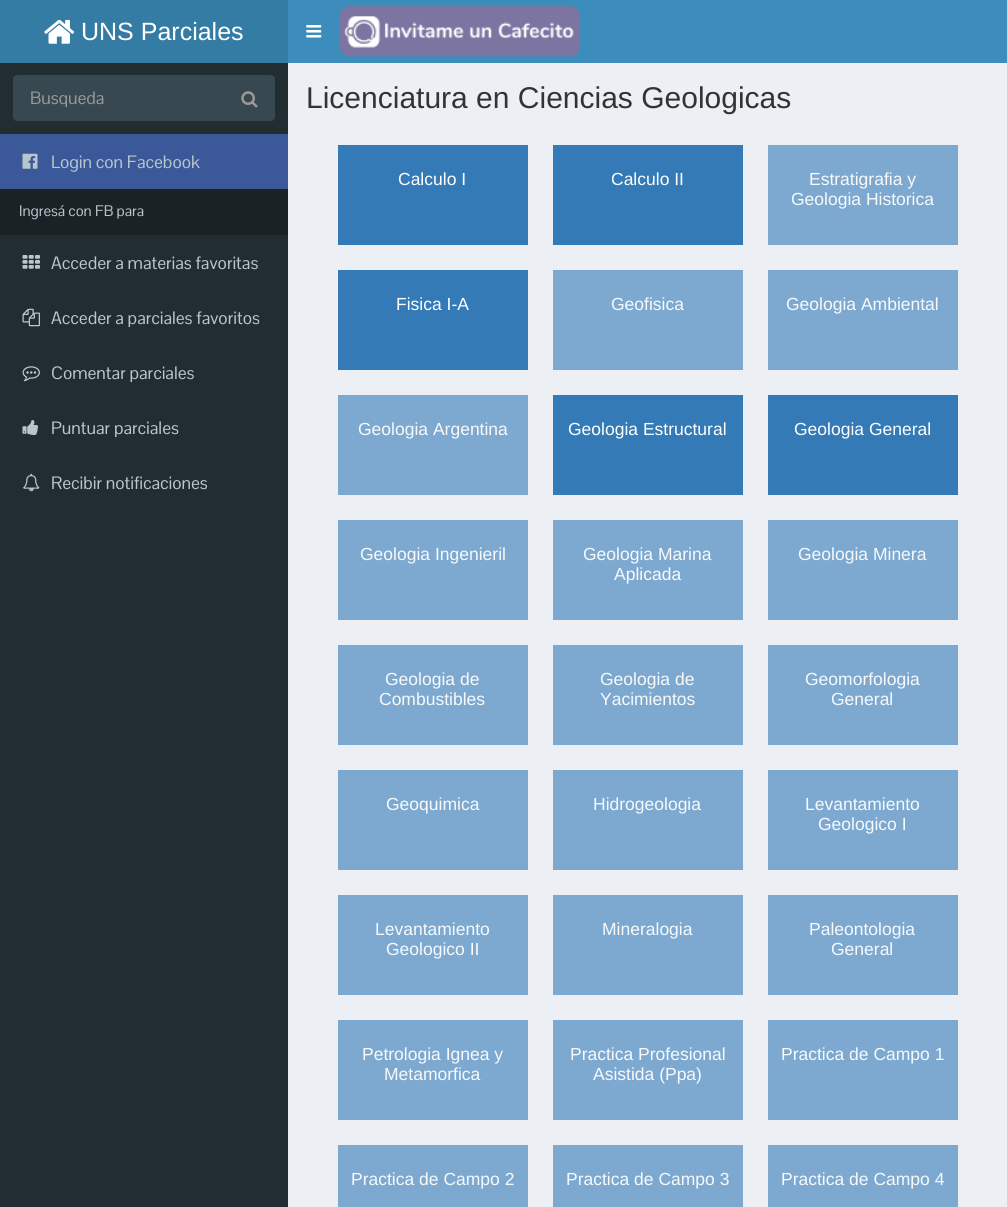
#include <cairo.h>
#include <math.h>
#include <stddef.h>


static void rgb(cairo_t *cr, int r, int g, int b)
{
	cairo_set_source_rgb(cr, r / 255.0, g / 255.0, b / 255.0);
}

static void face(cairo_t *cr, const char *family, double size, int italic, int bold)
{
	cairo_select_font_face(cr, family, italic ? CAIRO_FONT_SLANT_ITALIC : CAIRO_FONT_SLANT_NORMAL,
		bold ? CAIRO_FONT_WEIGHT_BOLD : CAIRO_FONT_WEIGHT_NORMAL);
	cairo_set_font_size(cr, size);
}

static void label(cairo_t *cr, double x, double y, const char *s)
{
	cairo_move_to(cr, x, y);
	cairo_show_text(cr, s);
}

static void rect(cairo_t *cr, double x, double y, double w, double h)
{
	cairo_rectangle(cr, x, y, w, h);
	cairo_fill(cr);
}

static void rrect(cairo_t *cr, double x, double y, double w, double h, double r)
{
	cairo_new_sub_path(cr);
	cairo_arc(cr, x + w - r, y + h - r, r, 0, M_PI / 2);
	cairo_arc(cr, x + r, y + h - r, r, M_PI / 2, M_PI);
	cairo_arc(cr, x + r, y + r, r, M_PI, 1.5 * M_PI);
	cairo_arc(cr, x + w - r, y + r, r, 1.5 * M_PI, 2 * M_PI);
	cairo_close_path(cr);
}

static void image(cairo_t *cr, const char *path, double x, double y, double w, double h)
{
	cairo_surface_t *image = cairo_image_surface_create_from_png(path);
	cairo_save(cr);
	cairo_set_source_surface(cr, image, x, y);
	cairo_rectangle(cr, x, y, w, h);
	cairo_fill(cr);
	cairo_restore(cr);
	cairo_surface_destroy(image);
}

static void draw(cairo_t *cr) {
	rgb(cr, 34, 45, 50);
	cairo_paint(cr);
	rgb(cr, 53, 124, 165);
	rect(cr, 0, 0, 288, 63);
	image(cr, "image0.png", 44, 19, 31, 25);
	face(cr, "Liberation Sans", 25, 0, 0);
	rgb(cr, 255, 255, 255);
	label(cr, 81, 40, "UNS Parciales");
	rgb(cr, 60, 141, 188);
	rect(cr, 288, 0, 719, 63);
	image(cr, "image1.png", 306, 25, 16, 13);
	image(cr, "image2.png", 340, 6, 240, 51);
	rrect(cr, 13.5, 75.5, 261, 45, 3.5);
	rgb(cr, 55, 72, 80);
	cairo_set_line_width(cr, 1);
	cairo_stroke(cr);
	cairo_new_path(cr);
	cairo_move_to(cr, 16.5, 76);
	cairo_line_to(cr, 226, 76);
	cairo_line_to(cr, 226, 120);
	cairo_line_to(cr, 16.5, 120);
	cairo_curve_to(cr, 15, 120, 14, 119, 14, 117.5);
	cairo_line_to(cr, 14, 78.5);
	cairo_curve_to(cr, 14, 77, 15, 76, 16.5, 76);
	cairo_close_path(cr);
	cairo_fill(cr);
	face(cr, "Pontano Sans", 17.5, 0, 0);
	rgb(cr, 153, 153, 153);
	label(cr, 30, 104, "Busqueda");
	rgb(cr, 55, 72, 80);
	cairo_new_path(cr);
	cairo_move_to(cr, 225, 76);
	cairo_line_to(cr, 271.5, 76);
	cairo_curve_to(cr, 273, 76, 274, 77, 274, 78.5);
	cairo_line_to(cr, 274, 117.5);
	cairo_curve_to(cr, 274, 119, 273, 120, 271.5, 120);
	cairo_line_to(cr, 225, 120);
	cairo_close_path(cr);
	cairo_fill(cr);
	image(cr, "image3.png", 241, 91, 17, 17);
	rgb(cr, 59, 89, 152);
	rect(cr, 0, 134, 288, 55);
	image(cr, "image4.png", 22, 153, 16, 16);
	rgb(cr, 184, 199, 206);
	label(cr, 51, 168, "Login con Facebook");
	rgb(cr, 26, 34, 38);
	rect(cr, 0, 189, 288, 46);
	face(cr, "Pontano Sans", 15, 0, 0);
	rgb(cr, 184, 199, 206);
	label(cr, 19, 216, "Ingresá con FB para");
	image(cr, "image5.png", 22, 255, 18, 14);
	face(cr, "Pontano Sans", 17.5, 0, 0);
	label(cr, 51, 269, "Acceder a materias favoritas");
	image(cr, "image6.png", 22, 308, 18, 19);
	label(cr, 51, 324, "Acceder a parciales favoritos");
	image(cr, "image7.png", 22, 366, 18, 16);
	label(cr, 51, 379, "Comentar parciales");
	image(cr, "image8.png", 22, 420, 17, 15);
	label(cr, 51, 434, "Puntuar parciales");
	image(cr, "image9.png", 23, 473, 17, 19);
	label(cr, 51, 489, "Recibir notificaciones");
	rgb(cr, 236, 240, 245);
	rect(cr, 288, 63, 719, 1144);
	face(cr, "Liberation Sans", 30, 0, 0);
	rgb(cr, 51, 51, 51);
	label(cr, 306, 108, "Licenciatura en Ciencias Geologicas");
	rgb(cr, 51, 122, 183);
	rect(cr, 338, 145, 190, 100);
	face(cr, "Liberation Sans", 17.5, 0, 0);
	rgb(cr, 255, 255, 255);
	label(cr, 398, 185, "Calculo I");
	rgb(cr, 51, 122, 183);
	rect(cr, 553, 145, 190, 100);
	rgb(cr, 255, 255, 255);
	label(cr, 611, 185, "Calculo II");
	rgb(cr, 125, 169, 208);
	rect(cr, 768, 145, 190, 100);
	rgb(cr, 247, 249, 251);
	label(cr, 809, 185, "Estratigrafia y");
	label(cr, 791, 205, "Geologia Historica");
	rgb(cr, 51, 122, 183);
	rect(cr, 338, 270, 190, 100);
	rgb(cr, 255, 255, 255);
	label(cr, 396, 310, "Fisica I-A");
	rgb(cr, 125, 169, 208);
	rect(cr, 553, 270, 190, 100);
	rgb(cr, 247, 249, 251);
	label(cr, 611, 310, "Geofisica");
	rgb(cr, 125, 169, 208);
	rect(cr, 768, 270, 190, 100);
	rgb(cr, 247, 249, 251);
	label(cr, 786, 310, "Geologia Ambiental");
	rgb(cr, 125, 169, 208);
	rect(cr, 338, 395, 190, 100);
	rgb(cr, 247, 249, 251);
	label(cr, 358, 435, "Geologia Argentina");
	rgb(cr, 51, 122, 183);
	rect(cr, 553, 395, 190, 100);
	rgb(cr, 255, 255, 255);
	label(cr, 568, 435, "Geologia Estructural");
	rgb(cr, 51, 122, 183);
	rect(cr, 768, 395, 190, 100);
	rgb(cr, 255, 255, 255);
	label(cr, 794, 435, "Geologia General");
	rgb(cr, 125, 169, 208);
	rect(cr, 338, 520, 190, 100);
	rgb(cr, 247, 249, 251);
	label(cr, 360, 560, "Geologia Ingenieril");
	rgb(cr, 125, 169, 208);
	rect(cr, 553, 520, 190, 100);
	rgb(cr, 247, 249, 251);
	label(cr, 583, 560, "Geologia Marina");
	label(cr, 614, 580, "Aplicada");
	rgb(cr, 125, 169, 208);
	rect(cr, 768, 520, 190, 100);
	rgb(cr, 247, 249, 251);
	label(cr, 798, 560, "Geologia Minera");
	rgb(cr, 125, 169, 208);
	rect(cr, 338, 645, 190, 100);
	rgb(cr, 247, 249, 251);
	label(cr, 385, 685, "Geologia de");
	label(cr, 379, 705, "Combustibles");
	rgb(cr, 125, 169, 208);
	rect(cr, 553, 645, 190, 100);
	rgb(cr, 247, 249, 251);
	label(cr, 600, 685, "Geologia de");
	label(cr, 600, 705, "Yacimientos");
	rgb(cr, 125, 169, 208);
	rect(cr, 768, 645, 190, 100);
	rgb(cr, 247, 249, 251);
	label(cr, 805, 685, "Geomorfologia");
	label(cr, 831, 705, "General");
	rgb(cr, 125, 169, 208);
	rect(cr, 338, 770, 190, 100);
	rgb(cr, 247, 249, 251);
	label(cr, 386, 810, "Geoquimica");
	rgb(cr, 125, 169, 208);
	rect(cr, 553, 770, 190, 100);
	rgb(cr, 247, 249, 251);
	label(cr, 593, 810, "Hidrogeologia");
	rgb(cr, 125, 169, 208);
	rect(cr, 768, 770, 190, 100);
	rgb(cr, 247, 249, 251);
	label(cr, 805, 810, "Levantamiento");
	label(cr, 818, 830, "Geologico I");
	rgb(cr, 125, 169, 208);
	rect(cr, 338, 895, 190, 100);
	rgb(cr, 247, 249, 251);
	label(cr, 375, 935, "Levantamiento");
	label(cr, 386, 955, "Geologico II");
	rgb(cr, 125, 169, 208);
	rect(cr, 553, 895, 190, 100);
	rgb(cr, 247, 249, 251);
	label(cr, 602, 935, "Mineralogia");
	rgb(cr, 125, 169, 208);
	rect(cr, 768, 895, 190, 100);
	rgb(cr, 247, 249, 251);
	label(cr, 809, 935, "Paleontologia");
	label(cr, 831, 955, "General");
	rgb(cr, 125, 169, 208);
	rect(cr, 338, 1020, 190, 100);
	rgb(cr, 247, 249, 251);
	label(cr, 362, 1060, "Petrologia Ignea y");
	label(cr, 384, 1080, "Metamorfica");
	rgb(cr, 125, 169, 208);
	rect(cr, 553, 1020, 190, 100);
	rgb(cr, 247, 249, 251);
	label(cr, 570, 1060, "Practica Profesional");
	label(cr, 593, 1080, "Asistida (Ppa)");
	rgb(cr, 125, 169, 208);
	rect(cr, 768, 1020, 190, 100);
	rgb(cr, 247, 249, 251);
	label(cr, 781, 1060, "Practica de Campo 1");
	rgb(cr, 125, 169, 208);
	rect(cr, 338, 1145, 190, 62);
	rgb(cr, 247, 249, 251);
	label(cr, 351, 1185, "Practica de Campo 2");
	rgb(cr, 125, 169, 208);
	rect(cr, 553, 1145, 190, 62);
	rgb(cr, 247, 249, 251);
	label(cr, 566, 1185, "Practica de Campo 3");
	rgb(cr, 125, 169, 208);
	rect(cr, 768, 1145, 190, 62);
	rgb(cr, 247, 249, 251);
	label(cr, 781, 1185, "Practica de Campo 4");
}

int main(void) {
	cairo_surface_t *surface = cairo_image_surface_create(CAIRO_FORMAT_RGB24, 1007, 1207);
	cairo_t *cr = cairo_create(surface);
	cairo_font_options_t *options = cairo_font_options_create();
	cairo_font_options_set_hint_metrics(options, CAIRO_HINT_METRICS_OFF);
	cairo_font_options_set_hint_style(options, CAIRO_HINT_STYLE_NONE);
	cairo_set_font_options(cr, options);
	cairo_set_miter_limit(cr, 4);
	draw(cr);
	cairo_surface_write_to_png(surface, "render.png");
	cairo_font_options_destroy(options);
	cairo_destroy(cr);
	cairo_surface_destroy(surface);
	return 0;
}
